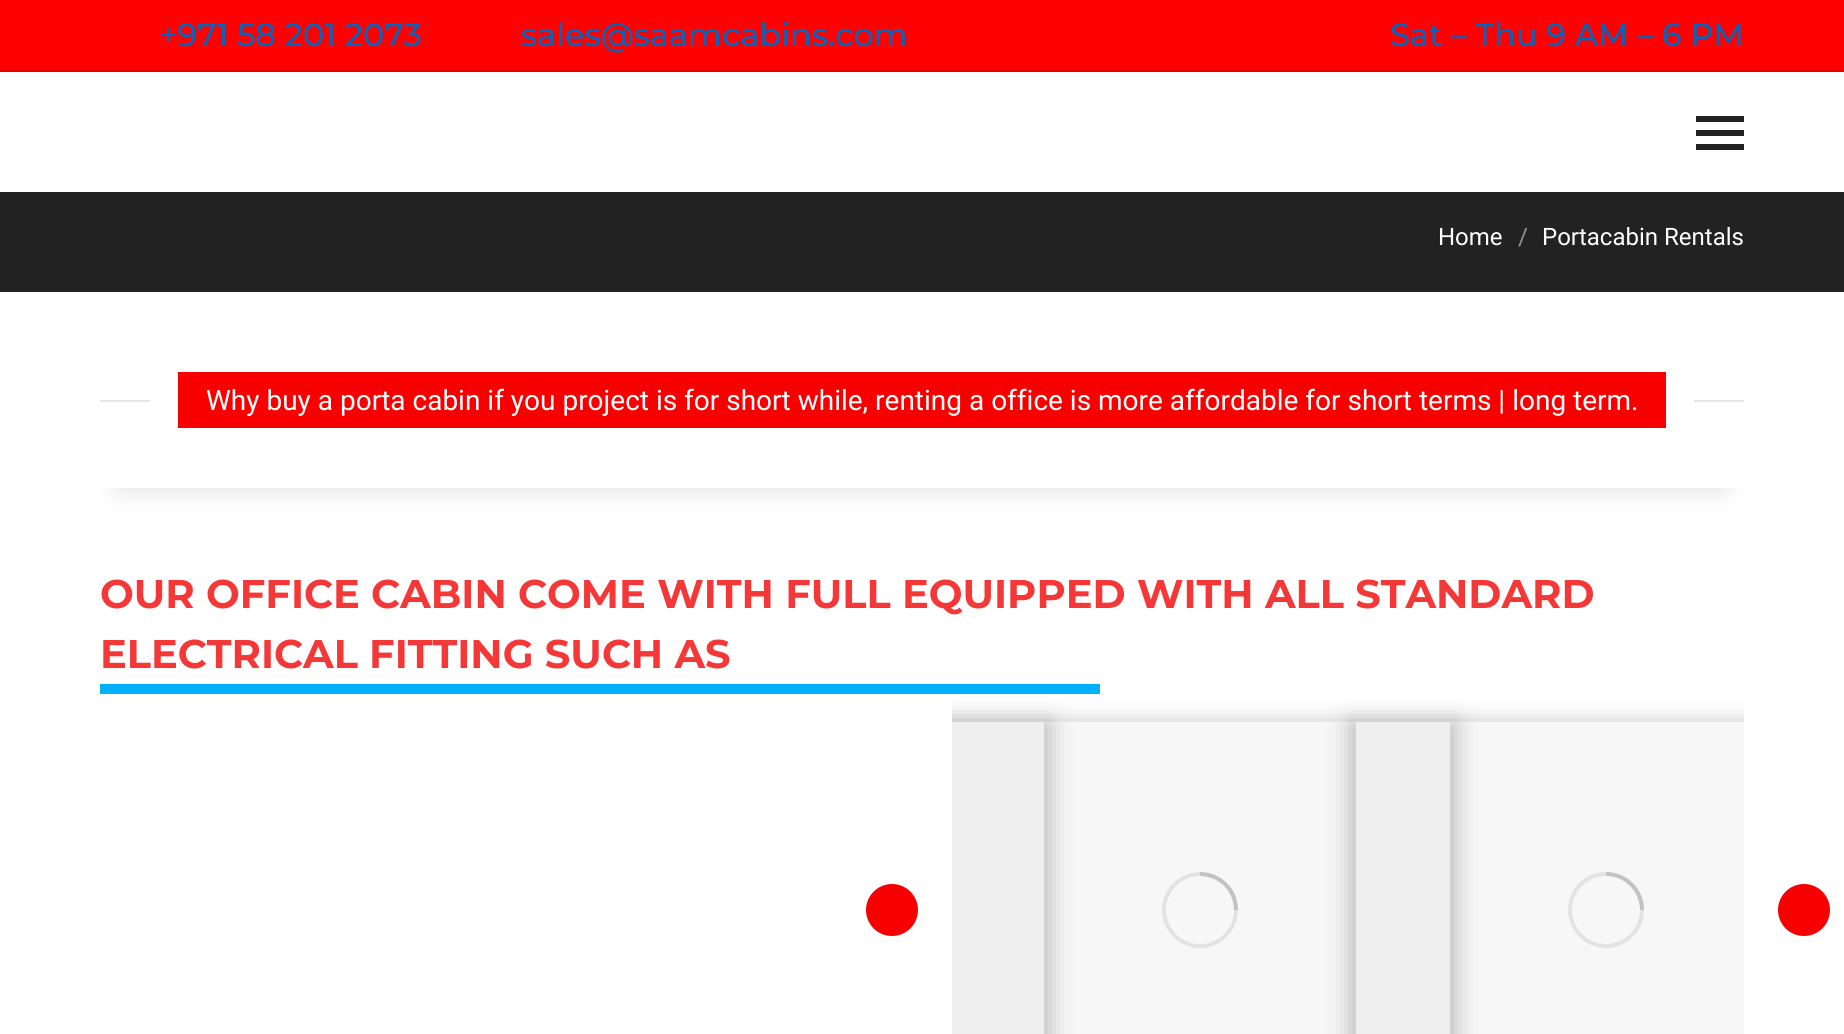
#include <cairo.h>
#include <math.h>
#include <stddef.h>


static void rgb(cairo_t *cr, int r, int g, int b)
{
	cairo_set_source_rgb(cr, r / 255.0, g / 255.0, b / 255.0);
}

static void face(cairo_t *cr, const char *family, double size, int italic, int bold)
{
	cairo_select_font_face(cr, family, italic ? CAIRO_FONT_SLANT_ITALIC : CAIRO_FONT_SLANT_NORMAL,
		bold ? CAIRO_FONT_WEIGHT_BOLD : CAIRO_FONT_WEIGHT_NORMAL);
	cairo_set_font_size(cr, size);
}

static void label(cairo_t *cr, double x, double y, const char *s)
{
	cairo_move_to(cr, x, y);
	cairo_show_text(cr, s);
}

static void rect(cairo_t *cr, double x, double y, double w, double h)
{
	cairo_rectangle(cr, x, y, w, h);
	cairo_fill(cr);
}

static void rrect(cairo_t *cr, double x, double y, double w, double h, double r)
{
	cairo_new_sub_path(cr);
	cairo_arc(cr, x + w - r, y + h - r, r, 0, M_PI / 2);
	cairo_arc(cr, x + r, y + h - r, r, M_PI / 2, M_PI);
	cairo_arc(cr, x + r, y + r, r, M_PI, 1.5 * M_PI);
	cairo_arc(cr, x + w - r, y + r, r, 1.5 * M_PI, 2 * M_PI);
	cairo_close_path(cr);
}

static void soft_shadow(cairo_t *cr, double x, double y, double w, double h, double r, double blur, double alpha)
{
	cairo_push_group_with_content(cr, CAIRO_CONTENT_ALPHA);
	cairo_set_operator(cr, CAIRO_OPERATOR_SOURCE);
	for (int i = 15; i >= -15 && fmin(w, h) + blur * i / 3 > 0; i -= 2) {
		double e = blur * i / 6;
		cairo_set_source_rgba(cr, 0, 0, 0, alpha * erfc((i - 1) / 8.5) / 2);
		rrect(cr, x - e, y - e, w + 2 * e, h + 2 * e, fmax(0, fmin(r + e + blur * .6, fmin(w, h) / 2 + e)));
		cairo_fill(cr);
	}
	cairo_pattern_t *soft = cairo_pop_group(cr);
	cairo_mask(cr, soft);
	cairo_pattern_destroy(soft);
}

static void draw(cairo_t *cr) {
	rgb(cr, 255, 255, 255);
	cairo_paint(cr);
	rgb(cr, 255, 0, 0);
	rect(cr, 0, 0, 1844, 70);
	face(cr, "Montserrat Medium", 32, 0, 0);
	rgb(cr, 0, 102, 191);
	label(cr, 159, 46, "+971 58 201 2073");
	label(cr, 521, 46, "sales@saamcabins.com");
	label(cr, 1390, 46, "Sat – Thu 9 AM – 6 PM");
	rgb(cr, 230, 0, 0);
	rect(cr, 0, 70, 1844, 2);
	rgb(cr, 34, 34, 34);
	rect(cr, 1696, 116, 48, 6);
	rect(cr, 1696, 130, 48, 6);
	rect(cr, 1696, 144, 48, 6);
	rect(cr, 0, 192, 1844, 100);
	face(cr, "Roboto", 24, 0, 0);
	rgb(cr, 255, 255, 255);
	label(cr, 1438, 245, "Home");
	rgb(cr, 145, 145, 145);
	label(cr, 1518, 245, "/");
	rgb(cr, 255, 255, 255);
	label(cr, 1542, 245, "Portacabin Rentals");
	rgb(cr, 249, 0, 0);
	rect(cr, 178, 372, 1488, 56);
	rgb(cr, 230, 230, 230);
	rect(cr, 100, 400, 50, 2);
	face(cr, "Roboto", 28, 0, 0);
	rgb(cr, 255, 255, 255);
	label(cr, 206, 410, "Why buy a porta cabin if you project is for short while, renting a office is more affordable for short terms | long term.");
	rgb(cr, 230, 230, 230);
	rect(cr, 1694, 400, 50, 2);
	cairo_save(cr);
	cairo_rectangle(cr, 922, 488, 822, 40);
	cairo_clip(cr);
	rgb(cr, 235, 235, 235);
	soft_shadow(cr, 72, 460, 1660, 36, 18, 10, 1);
	cairo_restore(cr);
	cairo_save(cr);
	cairo_rectangle(cr, 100, 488, 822, 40);
	cairo_clip(cr);
	rgb(cr, 235, 235, 235);
	soft_shadow(cr, 112, 460, 1660, 36, 18, 10, 1);
	cairo_restore(cr);
	face(cr, "Montserrat", 40, 0, 1);
	rgb(cr, 244, 56, 56);
	label(cr, 100, 608, "OUR OFFICE CABIN COME WITH FULL EQUIPPED WITH ALL STANDARD");
	label(cr, 100, 668, "ELECTRICAL FITTING SUCH AS");
	rgb(cr, 0, 176, 252);
	rect(cr, 100, 684, 1000, 6);
	rect(cr, 1094, 684, 6, 10);
	rect(cr, 100, 690, 1000, 4);
	cairo_save(cr);
	cairo_rectangle(cr, 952, 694, 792, 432);
	cairo_clip(cr);
	rgb(cr, 0, 0, 0);
	soft_shadow(cr, 538, 724, 512, 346, 0, 12, 0.25);
	cairo_restore(cr);
	rgb(cr, 247, 247, 247);
	rect(cr, 952, 722, 92, 312);
	cairo_save(cr);
	cairo_rectangle(cr, 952, 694, 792, 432);
	cairo_clip(cr);
	cairo_set_fill_rule(cr, CAIRO_FILL_RULE_EVEN_ODD);
	cairo_new_path(cr);
	cairo_move_to(cr, 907, 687);
	cairo_line_to(cr, 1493, 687);
	cairo_line_to(cr, 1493, 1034);
	cairo_line_to(cr, 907, 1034);
	cairo_close_path(cr);
	cairo_move_to(cr, 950, 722);
	cairo_line_to(cr, 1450, 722);
	cairo_line_to(cr, 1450, 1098);
	cairo_line_to(cr, 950, 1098);
	cairo_close_path(cr);
	cairo_clip(cr);
	rgb(cr, 0, 0, 0);
	soft_shadow(cr, 944, 724, 512, 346, 0, 12, 0.25);
	cairo_restore(cr);
	cairo_set_source_rgba(cr, 0.388, 0.388, 0.388, 0.05);
	rect(cr, 952, 722, 498, 312);
	cairo_arc(cr, 1200, 910, 36, 0, 2 * M_PI);
	rgb(cr, 227, 227, 227);
	cairo_set_line_width(cr, 4);
	cairo_stroke(cr);
	cairo_new_path(cr);
	cairo_move_to(cr, 1236, 910);
	cairo_curve_to(cr, 1236, 890, 1220, 874, 1200, 874);
	cairo_set_source_rgba(cr, 0.388, 0.388, 0.388, 0.25);
	cairo_stroke(cr);
	cairo_save(cr);
	cairo_rectangle(cr, 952, 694, 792, 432);
	cairo_clip(cr);
	cairo_set_fill_rule(cr, CAIRO_FILL_RULE_EVEN_ODD);
	cairo_new_path(cr);
	cairo_move_to(cr, 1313, 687);
	cairo_line_to(cr, 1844, 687);
	cairo_line_to(cr, 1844, 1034);
	cairo_line_to(cr, 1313, 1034);
	cairo_close_path(cr);
	cairo_move_to(cr, 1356, 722);
	cairo_line_to(cr, 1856, 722);
	cairo_line_to(cr, 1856, 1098);
	cairo_line_to(cr, 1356, 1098);
	cairo_close_path(cr);
	cairo_clip(cr);
	rgb(cr, 0, 0, 0);
	soft_shadow(cr, 1350, 724, 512, 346, 0, 12, 0.25);
	cairo_restore(cr);
	cairo_set_source_rgba(cr, 0.388, 0.388, 0.388, 0.05);
	rect(cr, 1356, 722, 388, 312);
	cairo_arc(cr, 1606, 910, 36, 0, 2 * M_PI);
	rgb(cr, 227, 227, 227);
	cairo_stroke(cr);
	cairo_new_path(cr);
	cairo_move_to(cr, 1642, 910);
	cairo_curve_to(cr, 1642, 890, 1626, 874, 1606, 874);
	cairo_set_source_rgba(cr, 0.388, 0.388, 0.388, 0.25);
	cairo_stroke(cr);
	rgb(cr, 249, 0, 0);
	cairo_arc(cr, 892, 910, 26, 0, 2 * M_PI);
	cairo_fill(cr);
	cairo_arc(cr, 1804, 910, 26, 0, 2 * M_PI);
	cairo_fill(cr);
}

int main(void) {
	cairo_surface_t *surface = cairo_image_surface_create(CAIRO_FORMAT_RGB24, 1844, 1034);
	cairo_t *cr = cairo_create(surface);
	cairo_font_options_t *options = cairo_font_options_create();
	cairo_font_options_set_hint_metrics(options, CAIRO_HINT_METRICS_OFF);
	cairo_font_options_set_hint_style(options, CAIRO_HINT_STYLE_NONE);
	cairo_set_font_options(cr, options);
	cairo_set_miter_limit(cr, 4);
	draw(cr);
	cairo_surface_write_to_png(surface, "render.png");
	cairo_font_options_destroy(options);
	cairo_destroy(cr);
	cairo_surface_destroy(surface);
	return 0;
}
